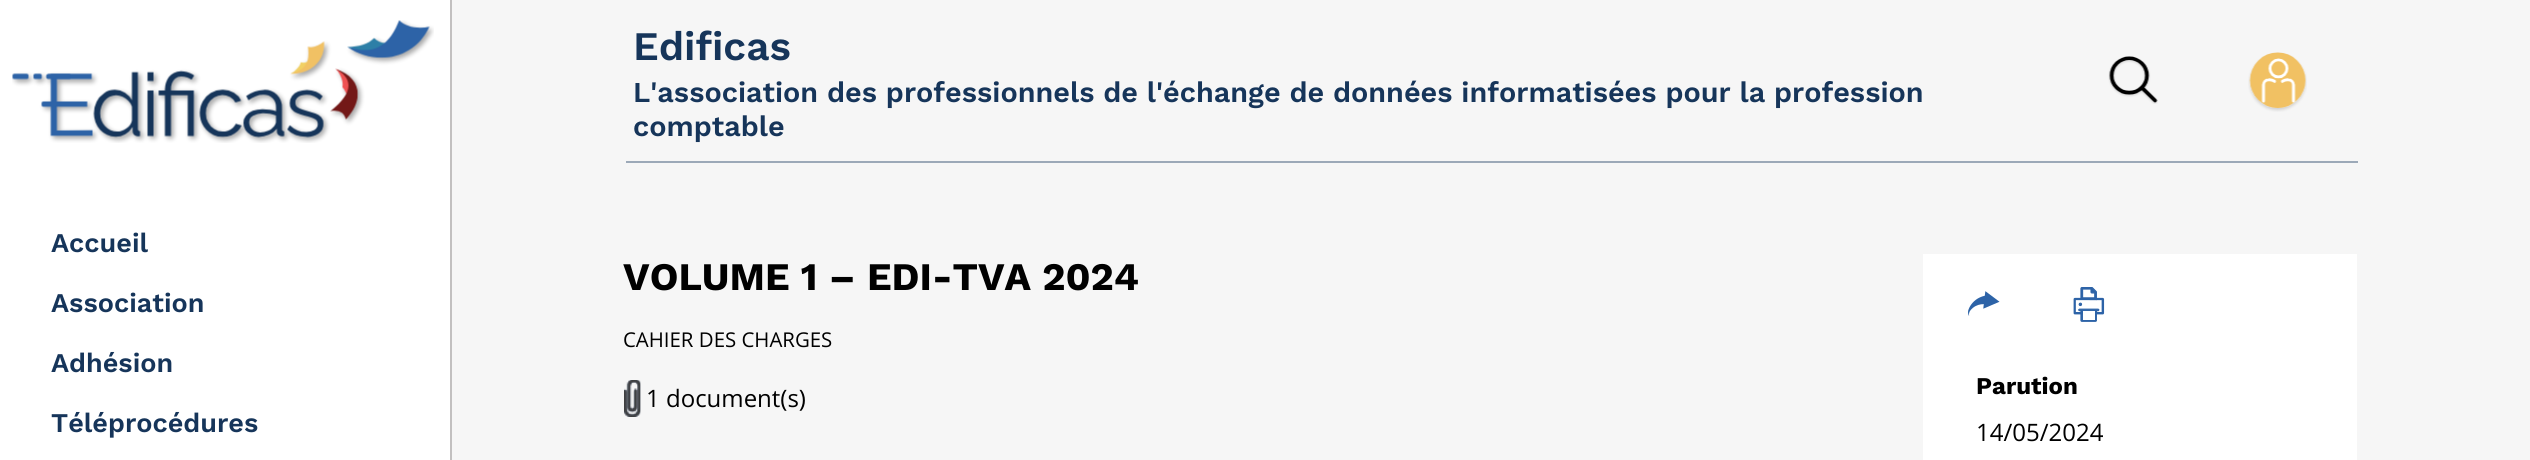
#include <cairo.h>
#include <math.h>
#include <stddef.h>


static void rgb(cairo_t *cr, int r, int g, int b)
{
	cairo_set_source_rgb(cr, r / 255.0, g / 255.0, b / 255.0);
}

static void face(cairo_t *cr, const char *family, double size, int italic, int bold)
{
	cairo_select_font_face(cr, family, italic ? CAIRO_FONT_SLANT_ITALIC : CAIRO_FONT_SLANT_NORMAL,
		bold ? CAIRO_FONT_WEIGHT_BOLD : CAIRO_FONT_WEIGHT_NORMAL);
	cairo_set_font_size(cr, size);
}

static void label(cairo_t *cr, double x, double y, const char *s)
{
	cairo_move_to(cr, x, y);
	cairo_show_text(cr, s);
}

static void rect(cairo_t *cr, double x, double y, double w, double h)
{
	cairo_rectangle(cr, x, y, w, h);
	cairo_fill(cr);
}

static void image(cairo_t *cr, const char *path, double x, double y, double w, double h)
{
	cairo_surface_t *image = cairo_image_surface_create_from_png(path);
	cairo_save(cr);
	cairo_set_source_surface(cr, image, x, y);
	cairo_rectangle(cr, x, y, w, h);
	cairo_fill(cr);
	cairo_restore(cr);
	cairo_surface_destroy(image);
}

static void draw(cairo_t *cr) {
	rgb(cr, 246, 246, 246);
	cairo_paint(cr);
	rgb(cr, 255, 255, 255);
	rect(cr, 0, 0, 450, 460);
	face(cr, "Work Sans SemiBold", 27, 0, 0);
	rgb(cr, 22, 53, 90);
	label(cr, 51, 252, "Accueil");
	label(cr, 51, 312, "Association");
	label(cr, 51, 372, "Adhésion");
	label(cr, 51, 432, "Téléprocédures");
	rgb(cr, 194, 192, 192);
	rect(cr, 450, 0, 2, 460);
	image(cr, "image0.png", 12, 20, 422, 123);
	rgb(cr, 156, 169, 184);
	rect(cr, 626, 161, 1732, 2);
	face(cr, "Work Sans SemiBold", 40.5, 0, 0);
	rgb(cr, 22, 53, 90);
	label(cr, 633, 60, "Edificas");
	face(cr, "Work Sans SemiBold", 28.8, 0, 0);
	label(cr, 633, 102, "L'association des professionnels de l'échange de données informatisées pour la profession");
	label(cr, 633, 136, "comptable");
	image(cr, "image1.png", 2108, 56, 50, 48);
	image(cr, "image2.png", 2248, 52, 59, 60);
	face(cr, "Work Sans", 39, 0, 1);
	rgb(cr, 0, 0, 0);
	label(cr, 623, 290, "VOLUME 1 – EDI-TVA 2024");
	face(cr, "Open Sans", 20.4, 0, 0);
	label(cr, 623, 347, "CAHIER DES CHARGES");
	image(cr, "image3.png", 624, 380, 17, 37);
	face(cr, "Open Sans", 24, 0, 0);
	label(cr, 646, 407, "1 document(s)");
	rgb(cr, 255, 255, 255);
	rect(cr, 1923, 254, 434, 206);
	image(cr, "image4.png", 1968, 291, 32, 25);
	image(cr, "image5.png", 2073, 287, 32, 35);
	face(cr, "Work Sans", 24, 0, 1);
	rgb(cr, 0, 0, 0);
	label(cr, 1976, 394, "Parution");
	face(cr, "Open Sans", 24, 0, 0);
	label(cr, 1976, 441, "14/05/2024");
}

int main(void) {
	cairo_surface_t *surface = cairo_image_surface_create(CAIRO_FORMAT_RGB24, 2530, 460);
	cairo_t *cr = cairo_create(surface);
	cairo_font_options_t *options = cairo_font_options_create();
	cairo_font_options_set_hint_metrics(options, CAIRO_HINT_METRICS_OFF);
	cairo_font_options_set_hint_style(options, CAIRO_HINT_STYLE_NONE);
	cairo_set_font_options(cr, options);
	cairo_set_miter_limit(cr, 4);
	draw(cr);
	cairo_surface_write_to_png(surface, "render.png");
	cairo_font_options_destroy(options);
	cairo_destroy(cr);
	cairo_surface_destroy(surface);
	return 0;
}
